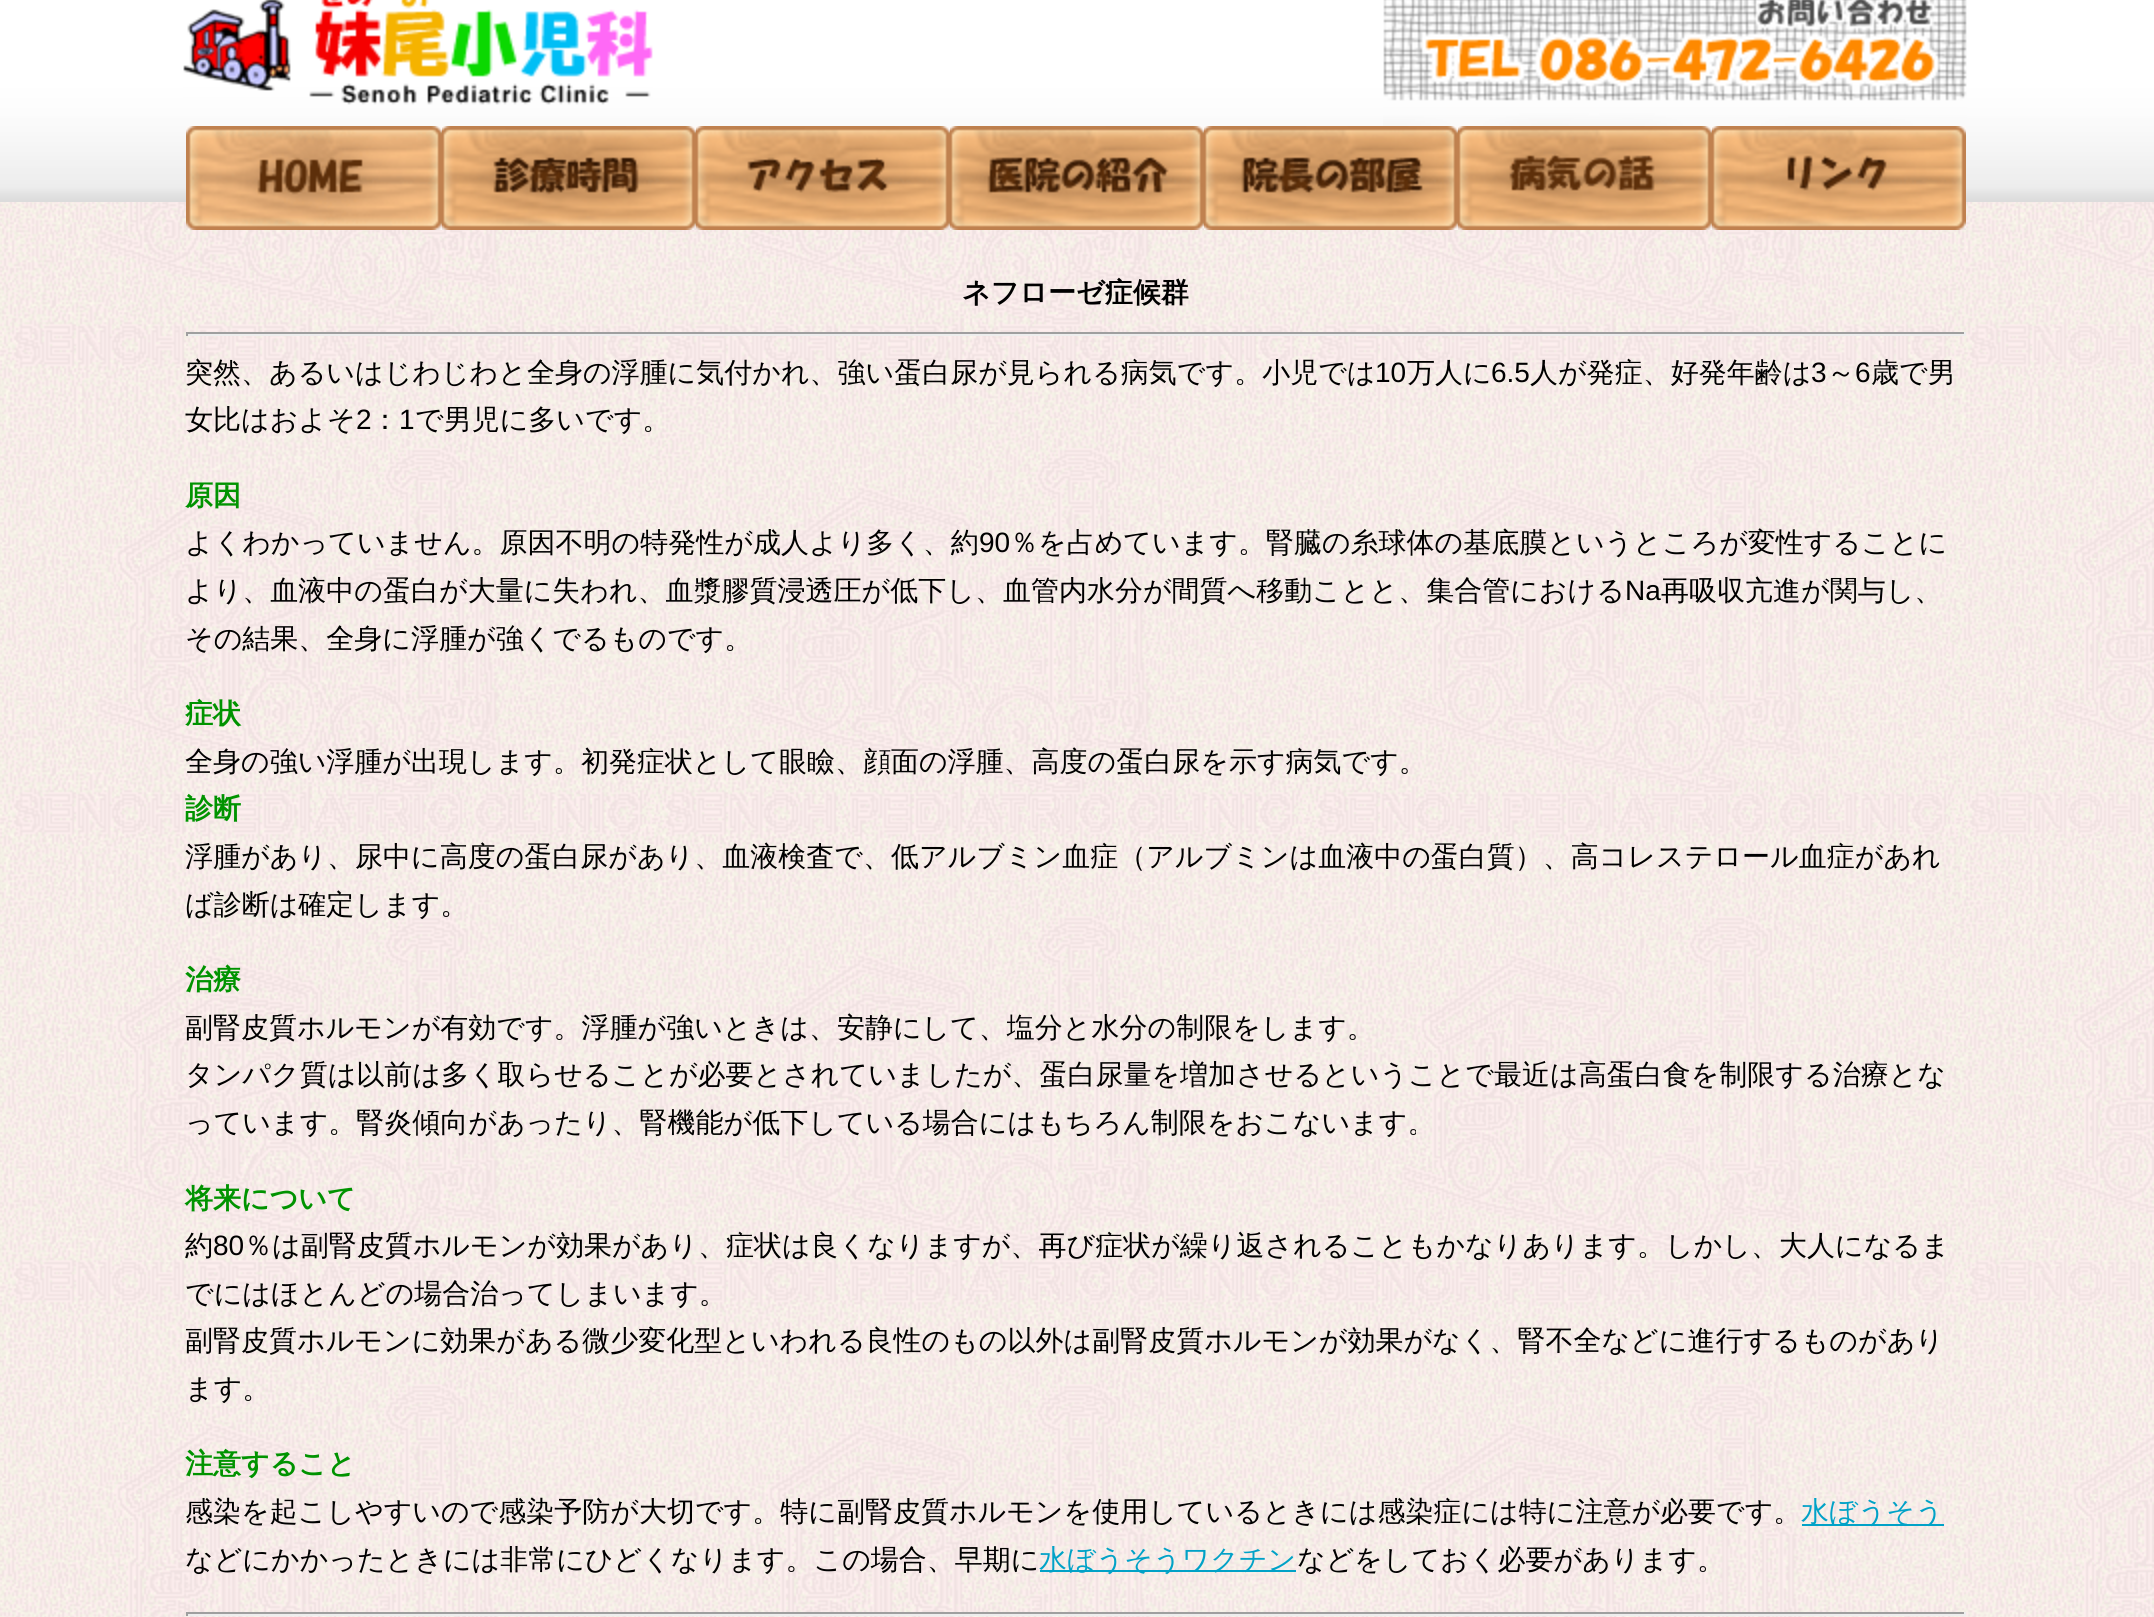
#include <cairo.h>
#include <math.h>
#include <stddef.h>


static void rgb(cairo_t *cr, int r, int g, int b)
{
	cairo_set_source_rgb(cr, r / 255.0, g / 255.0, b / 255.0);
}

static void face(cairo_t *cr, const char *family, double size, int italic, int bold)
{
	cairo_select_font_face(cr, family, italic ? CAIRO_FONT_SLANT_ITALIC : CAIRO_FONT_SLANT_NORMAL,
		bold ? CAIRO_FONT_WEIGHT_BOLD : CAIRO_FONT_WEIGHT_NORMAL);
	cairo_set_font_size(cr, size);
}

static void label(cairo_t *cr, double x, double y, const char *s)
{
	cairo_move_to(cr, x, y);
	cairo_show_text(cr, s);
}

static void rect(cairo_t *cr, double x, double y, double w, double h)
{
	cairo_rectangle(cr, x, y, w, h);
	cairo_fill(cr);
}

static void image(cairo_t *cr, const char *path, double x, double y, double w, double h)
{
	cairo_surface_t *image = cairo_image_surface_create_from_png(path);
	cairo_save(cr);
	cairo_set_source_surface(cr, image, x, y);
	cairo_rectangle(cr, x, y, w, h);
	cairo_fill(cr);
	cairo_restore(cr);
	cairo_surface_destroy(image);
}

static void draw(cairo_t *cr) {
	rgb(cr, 255, 255, 255);
	cairo_paint(cr);
	image(cr, "image0.png", 0, 202, 2154, 1415);
	image(cr, "image1.png", 0, 0, 2154, 202);
	image(cr, "image2.png", 183, 0, 470, 105);
	image(cr, "image3.png", 1383, 0, 584, 126);
	image(cr, "image4.png", 186, 126, 256, 104);
	image(cr, "image5.png", 442, 126, 254, 104);
	image(cr, "image6.png", 696, 126, 254, 104);
	image(cr, "image7.png", 950, 126, 254, 104);
	image(cr, "image8.png", 1204, 126, 254, 104);
	image(cr, "image9.png", 1458, 126, 254, 104);
	image(cr, "image10.png", 1712, 126, 254, 104);
	face(cr, "WenQuanYi Zen Hei", 28, 0, 1);
	rgb(cr, 0, 0, 0);
	label(cr, 962, 302, "ネフローゼ症候群");
	rgb(cr, 159, 159, 159);
	rect(cr, 186, 332, 1780, 2);
	rgb(cr, 238, 238, 238);
	rect(cr, 1964, 332, 2, 4);
	rect(cr, 186, 334, 1780, 2);
	rgb(cr, 159, 159, 159);
	rect(cr, 186, 332, 2, 4);
	face(cr, "WenQuanYi Zen Hei Medium", 28, 0, 0);
	rgb(cr, 0, 0, 0);
	label(cr, 185, 382, "突然、あるいはじわじわと全身の浮腫に気付かれ、強い蛋白尿が見られる病気です。小児では");
	face(cr, "Liberation Sans", 28, 0, 0);
	label(cr, 1375, 382, "10");
	face(cr, "WenQuanYi Zen Hei Medium", 28, 0, 0);
	label(cr, 1407, 382, "万人に");
	face(cr, "Liberation Sans", 28, 0, 0);
	label(cr, 1491, 382, "6.5");
	face(cr, "WenQuanYi Zen Hei Medium", 28, 0, 0);
	label(cr, 1530, 382, "人が発症、好発年齢は");
	face(cr, "Liberation Sans", 28, 0, 0);
	label(cr, 1811, 382, "3");
	face(cr, "WenQuanYi Zen Hei Medium", 28, 0, 0);
	label(cr, 1827, 382, "～");
	face(cr, "Liberation Sans", 28, 0, 0);
	label(cr, 1855, 382, "6");
	face(cr, "WenQuanYi Zen Hei Medium", 28, 0, 0);
	label(cr, 1871, 382, "歳で男");
	label(cr, 185, 429, "女比はおよそ");
	face(cr, "Liberation Sans", 28, 0, 0);
	label(cr, 356, 429, "2");
	face(cr, "WenQuanYi Zen Hei Medium", 28, 0, 0);
	label(cr, 371, 429, "：");
	face(cr, "Liberation Sans", 28, 0, 0);
	label(cr, 399, 429, "1");
	face(cr, "WenQuanYi Zen Hei Medium", 28, 0, 0);
	label(cr, 415, 429, "で男児に多いです。");
	face(cr, "WenQuanYi Zen Hei", 28, 0, 1);
	rgb(cr, 0, 147, 0);
	label(cr, 185, 505, "原因");
	face(cr, "WenQuanYi Zen Hei Medium", 28, 0, 0);
	rgb(cr, 0, 0, 0);
	label(cr, 185, 552, "よくわかっていません。原因不明の特発性が成人より多く、約");
	face(cr, "Liberation Sans", 28, 0, 0);
	label(cr, 979, 552, "90");
	face(cr, "WenQuanYi Zen Hei Medium", 28, 0, 0);
	label(cr, 1010, 552, "％を占めています。腎臓の糸球体の基底膜というところが変性することに");
	label(cr, 185, 600, "より、血液中の蛋白が大量に失われ、血漿膠質浸透圧が低下し、血管内水分が間質へ移動ことと、集合管における");
	face(cr, "Liberation Sans", 28, 0, 0);
	label(cr, 1625, 600, "Na");
	face(cr, "WenQuanYi Zen Hei Medium", 28, 0, 0);
	label(cr, 1661, 600, "再吸収亢進が関与し、");
	label(cr, 185, 648, "その結果、全身に浮腫が強くでるものです。");
	face(cr, "WenQuanYi Zen Hei", 28, 0, 1);
	rgb(cr, 0, 147, 0);
	label(cr, 185, 723, "症状");
	face(cr, "WenQuanYi Zen Hei Medium", 28, 0, 0);
	rgb(cr, 0, 0, 0);
	label(cr, 185, 771, "全身の強い浮腫が出現します。初発症状として眼瞼、顔面の浮腫、高度の蛋白尿を示す病気です。");
	face(cr, "WenQuanYi Zen Hei", 28, 0, 1);
	rgb(cr, 0, 147, 0);
	label(cr, 185, 818, "診断");
	face(cr, "WenQuanYi Zen Hei Medium", 28, 0, 0);
	rgb(cr, 0, 0, 0);
	label(cr, 185, 866, "浮腫があり、尿中に高度の蛋白尿があり、血液検査で、低アルブミン血症（アルブミンは血液中の蛋白質）、高コレステロール血症があれ");
	label(cr, 185, 914, "ば診断は確定します。");
	face(cr, "WenQuanYi Zen Hei", 28, 0, 1);
	rgb(cr, 0, 147, 0);
	label(cr, 185, 989, "治療");
	face(cr, "WenQuanYi Zen Hei Medium", 28, 0, 0);
	rgb(cr, 0, 0, 0);
	label(cr, 185, 1037, "副腎皮質ホルモンが有効です。浮腫が強いときは、安静にして、塩分と水分の制限をします。");
	label(cr, 185, 1084, "タンパク質は以前は多く取らせることが必要とされていましたが、蛋白尿量を増加させるということで最近は高蛋白食を制限する治療とな");
	label(cr, 185, 1132, "っています。腎炎傾向があったり、腎機能が低下している場合にはもちろん制限をおこないます。");
	face(cr, "WenQuanYi Zen Hei", 28, 0, 1);
	rgb(cr, 0, 147, 0);
	label(cr, 185, 1208, "将来について");
	face(cr, "WenQuanYi Zen Hei Medium", 28, 0, 0);
	rgb(cr, 0, 0, 0);
	label(cr, 185, 1255, "約");
	face(cr, "Liberation Sans", 28, 0, 0);
	label(cr, 213, 1255, "80");
	face(cr, "WenQuanYi Zen Hei Medium", 28, 0, 0);
	label(cr, 244, 1255, "％は副腎皮質ホルモンが効果があり、症状は良くなりますが、再び症状が繰り返されることもかなりあります。しかし、大人になるま");
	label(cr, 185, 1303, "でにはほとんどの場合治ってしまいます。");
	label(cr, 185, 1350, "副腎皮質ホルモンに効果がある微少変化型といわれる良性のもの以外は副腎皮質ホルモンが効果がなく、腎不全などに進行するものがあり");
	label(cr, 185, 1398, "ます。");
	face(cr, "WenQuanYi Zen Hei", 28, 0, 1);
	rgb(cr, 0, 147, 0);
	label(cr, 185, 1473, "注意すること");
	face(cr, "WenQuanYi Zen Hei Medium", 28, 0, 0);
	rgb(cr, 0, 0, 0);
	label(cr, 185, 1521, "感染を起こしやすいので感染予防が大切です。特に副腎皮質ホルモンを使用しているときには感染症には特に注意が必要です。");
	rgb(cr, 1, 162, 199);
	rect(cr, 1802, 1524, 142, 2);
	label(cr, 1801, 1521, "水ぼうそう");
	rgb(cr, 0, 0, 0);
	label(cr, 185, 1569, "などにかかったときには非常にひどくなります。この場合、早期に");
	rgb(cr, 1, 162, 199);
	rect(cr, 1040, 1570, 256, 2);
	label(cr, 1039, 1569, "水ぼうそうワクチン");
	rgb(cr, 0, 0, 0);
	label(cr, 1297, 1569, "などをしておく必要があります。");
	rgb(cr, 159, 159, 159);
	rect(cr, 186, 1612, 1780, 2);
	rgb(cr, 238, 238, 238);
	rect(cr, 1964, 1612, 2, 4);
	rect(cr, 186, 1614, 1780, 2);
	rgb(cr, 159, 159, 159);
	rect(cr, 186, 1612, 2, 4);
}

int main(void) {
	cairo_surface_t *surface = cairo_image_surface_create(CAIRO_FORMAT_RGB24, 2154, 1617);
	cairo_t *cr = cairo_create(surface);
	cairo_font_options_t *options = cairo_font_options_create();
	cairo_font_options_set_hint_metrics(options, CAIRO_HINT_METRICS_OFF);
	cairo_font_options_set_hint_style(options, CAIRO_HINT_STYLE_NONE);
	cairo_set_font_options(cr, options);
	cairo_set_miter_limit(cr, 4);
	draw(cr);
	cairo_surface_write_to_png(surface, "render.png");
	cairo_font_options_destroy(options);
	cairo_destroy(cr);
	cairo_surface_destroy(surface);
	return 0;
}
